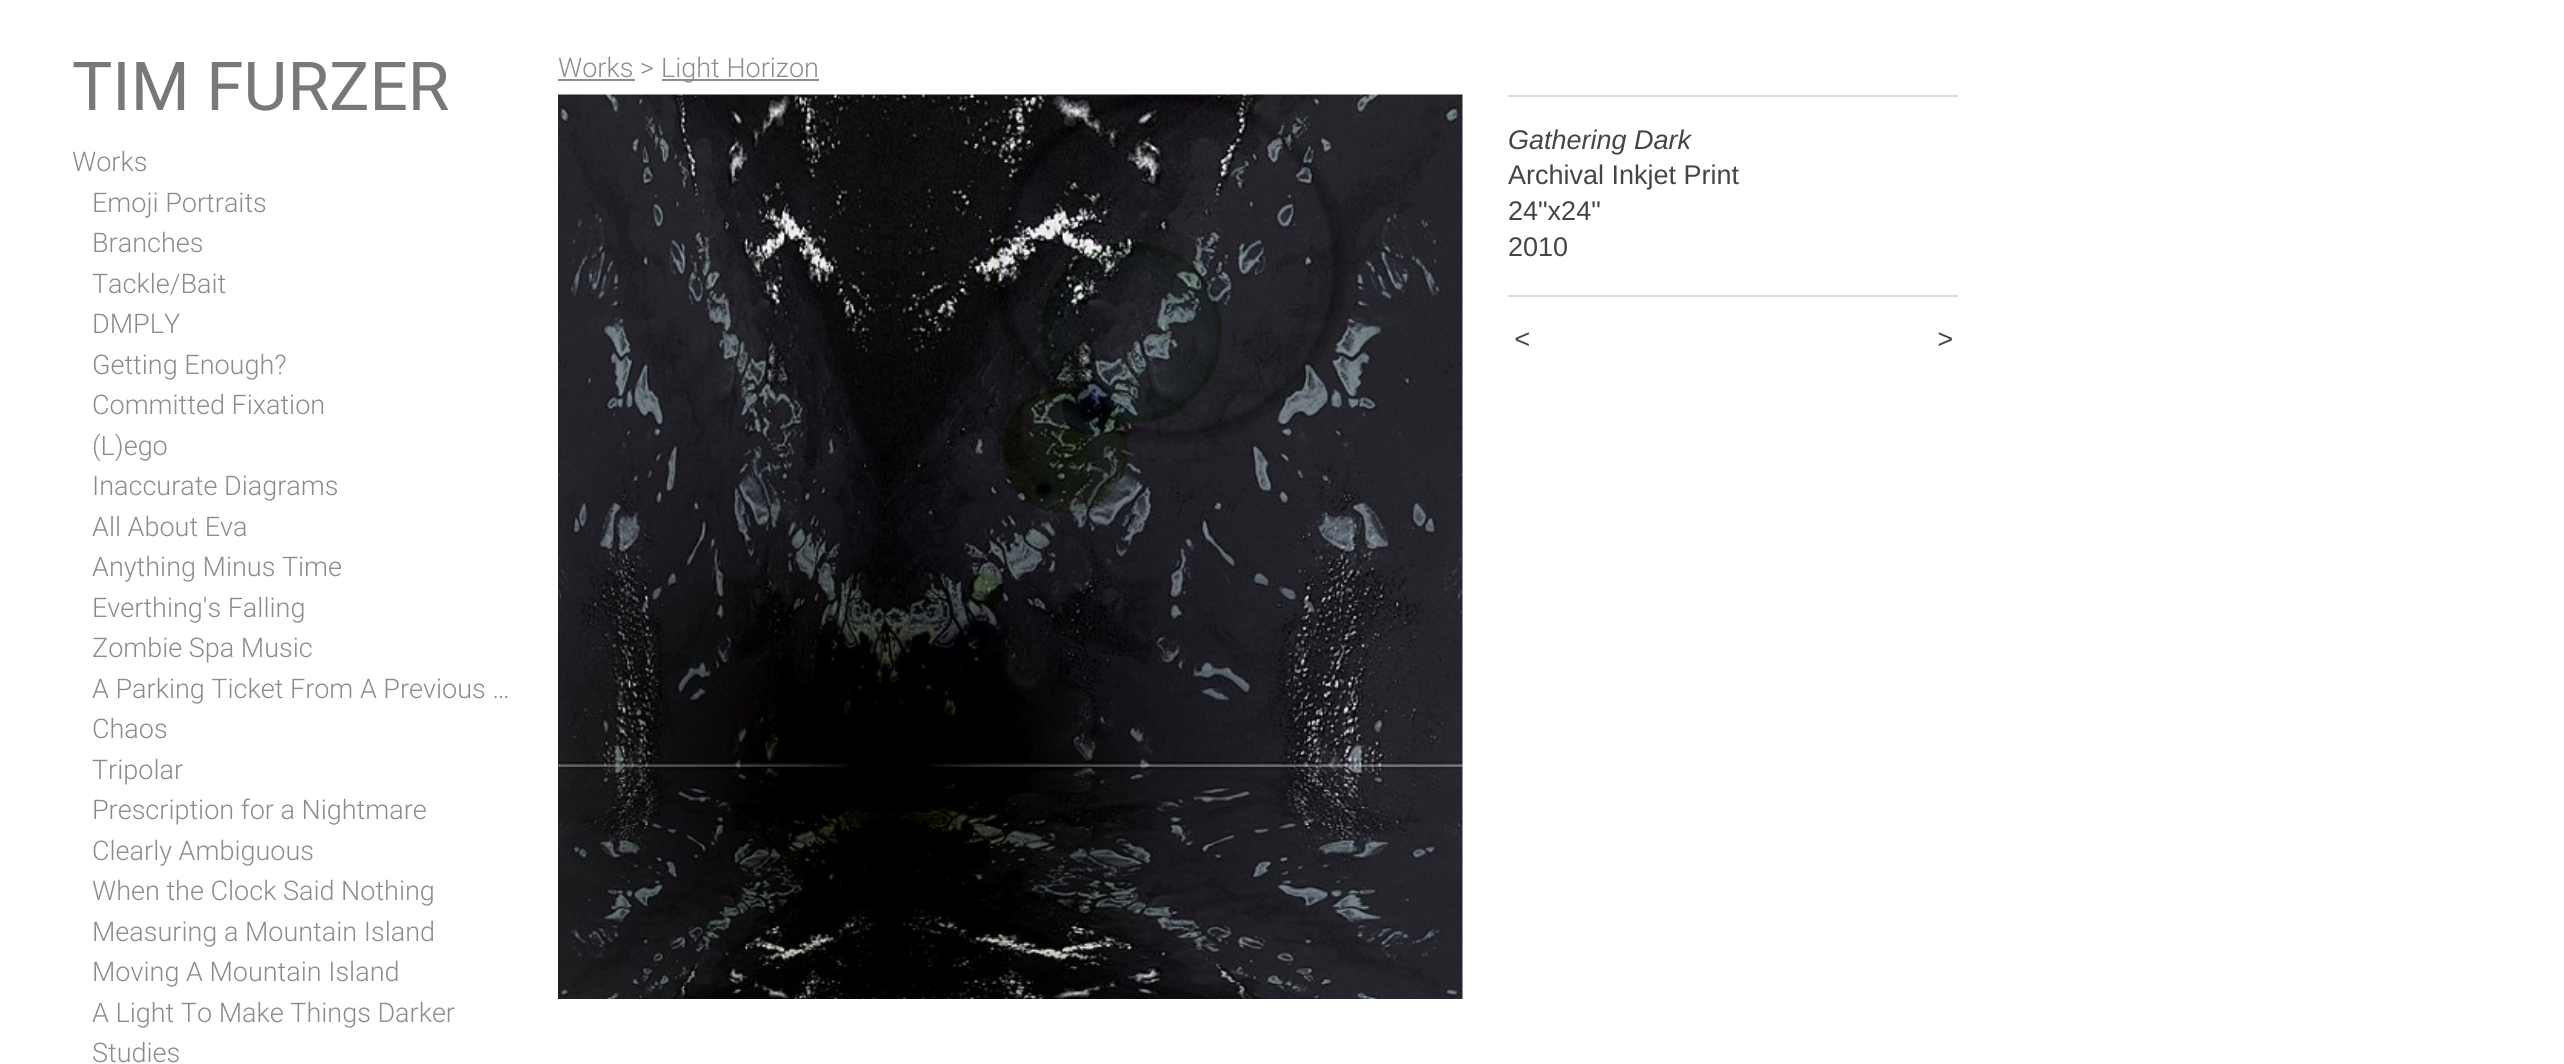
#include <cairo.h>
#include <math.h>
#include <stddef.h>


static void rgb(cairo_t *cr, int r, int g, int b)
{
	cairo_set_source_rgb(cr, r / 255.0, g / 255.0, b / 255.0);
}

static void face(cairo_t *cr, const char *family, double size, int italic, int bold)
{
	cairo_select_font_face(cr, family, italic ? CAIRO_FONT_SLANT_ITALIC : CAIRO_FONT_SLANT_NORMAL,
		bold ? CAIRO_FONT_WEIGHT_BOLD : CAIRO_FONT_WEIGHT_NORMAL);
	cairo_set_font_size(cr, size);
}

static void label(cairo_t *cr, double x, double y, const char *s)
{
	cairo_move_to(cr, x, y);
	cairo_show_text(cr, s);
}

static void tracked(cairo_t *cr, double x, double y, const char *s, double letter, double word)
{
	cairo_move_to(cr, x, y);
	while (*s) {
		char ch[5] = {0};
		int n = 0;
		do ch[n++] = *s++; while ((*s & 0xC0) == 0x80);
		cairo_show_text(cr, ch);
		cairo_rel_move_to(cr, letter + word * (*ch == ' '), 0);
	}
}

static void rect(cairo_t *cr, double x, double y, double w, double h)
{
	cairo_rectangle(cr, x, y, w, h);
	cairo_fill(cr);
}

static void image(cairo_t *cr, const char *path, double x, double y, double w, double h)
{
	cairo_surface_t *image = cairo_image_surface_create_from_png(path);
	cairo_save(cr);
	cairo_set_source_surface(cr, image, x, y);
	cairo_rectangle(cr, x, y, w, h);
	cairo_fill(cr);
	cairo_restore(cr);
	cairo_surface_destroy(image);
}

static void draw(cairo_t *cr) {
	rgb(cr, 255, 255, 255);
	cairo_paint(cr);
	face(cr, "Roboto", 67.5, 0, 0);
	rgb(cr, 119, 121, 119);
	label(cr, 72, 110, "TIM FURZER");
	face(cr, "Roboto Light", 27, 0, 0);
	rgb(cr, 140, 140, 140);
	label(cr, 72, 171, "Works");
	label(cr, 92, 212, "Emoji Portraits");
	label(cr, 92, 252, "Branches");
	label(cr, 92, 293, "Tackle/Bait");
	label(cr, 92, 333, "DMPLY");
	label(cr, 92, 374, "Getting Enough?");
	label(cr, 92, 414, "Committed Fixation");
	label(cr, 92, 455, "(L)ego");
	label(cr, 92, 495, "Inaccurate Diagrams");
	label(cr, 92, 536, "All About Eva");
	label(cr, 92, 576, "Anything Minus Time");
	label(cr, 92, 617, "Everthing's Falling");
	label(cr, 92, 657, "Zombie Spa Music");
	label(cr, 92, 698, "A Parking Ticket From A Previous …");
	label(cr, 92, 738, "Chaos");
	label(cr, 92, 779, "Tripolar");
	label(cr, 92, 819, "Prescription for a Nightmare");
	label(cr, 92, 860, "Clearly Ambiguous");
	label(cr, 92, 900, "When the Clock Said Nothing");
	label(cr, 92, 941, "Measuring a Mountain Island");
	label(cr, 92, 981, "Moving A Mountain Island");
	label(cr, 92, 1022, "A Light To Make Things Darker");
	label(cr, 92, 1062, "Studies");
	label(cr, 558, 77, "Works >");
	rect(cr, 558, 79, 77, 2);
	rect(cr, 662, 79, 157, 2);
	label(cr, 661, 77, "Light Horizon");
	image(cr, "image0.png", 558, 94, 905, 905);
	rgb(cr, 218, 218, 218);
	rect(cr, 1508, 95, 450, 2);
	face(cr, "Liberation Sans", 27, 1, 0);
	rgb(cr, 69, 69, 69);
	label(cr, 1508, 149, "Gathering Dark");
	face(cr, "Liberation Sans", 27, 0, 0);
	label(cr, 1508, 184, "Archival Inkjet Print");
	label(cr, 1508, 220, "24\"x24\"");
	label(cr, 1508, 256, "2010");
	rgb(cr, 218, 218, 218);
	rect(cr, 1508, 295, 450, 2);
	face(cr, "Liberation Sans", 27, 1, 0);
	rgb(cr, 69, 69, 69);
	tracked(cr, 1514, 348, "<", 2, 0);
	tracked(cr, 1937, 348, ">", 2, 0);
}

int main(void) {
	cairo_surface_t *surface = cairo_image_surface_create(CAIRO_FORMAT_RGB24, 2564, 1064);
	cairo_t *cr = cairo_create(surface);
	cairo_font_options_t *options = cairo_font_options_create();
	cairo_font_options_set_hint_metrics(options, CAIRO_HINT_METRICS_OFF);
	cairo_font_options_set_hint_style(options, CAIRO_HINT_STYLE_NONE);
	cairo_set_font_options(cr, options);
	cairo_set_miter_limit(cr, 4);
	draw(cr);
	cairo_surface_write_to_png(surface, "render.png");
	cairo_font_options_destroy(options);
	cairo_destroy(cr);
	cairo_surface_destroy(surface);
	return 0;
}
